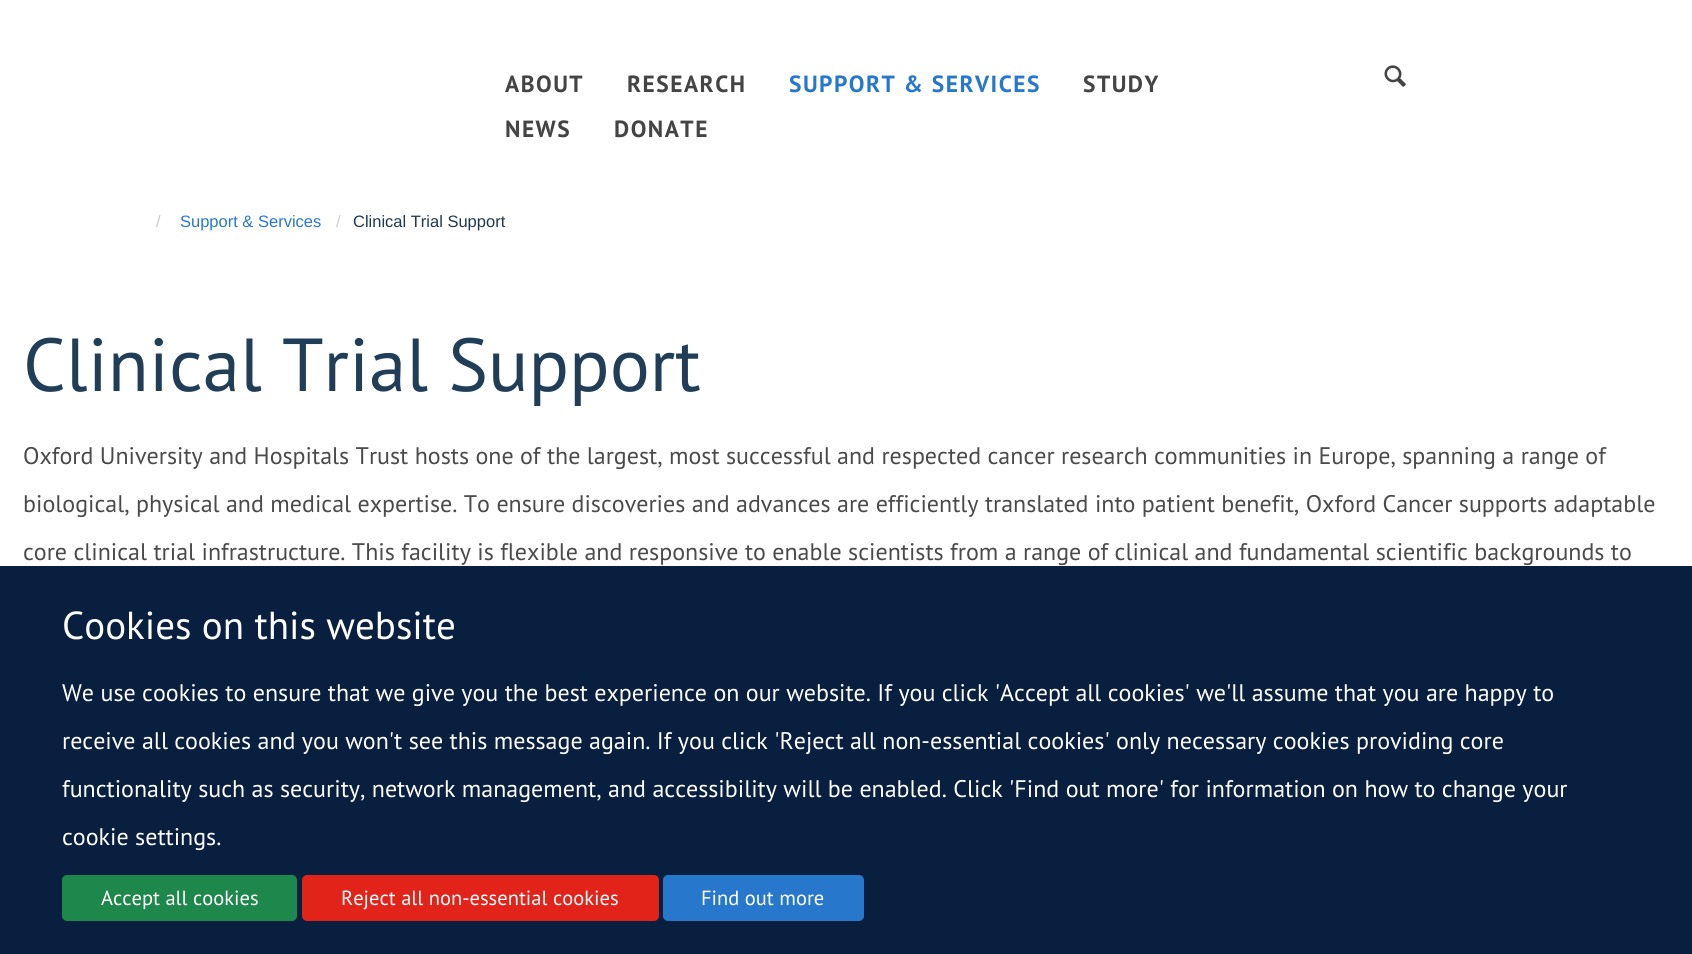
#include <cairo.h>
#include <math.h>
#include <stddef.h>


static void rgb(cairo_t *cr, int r, int g, int b)
{
	cairo_set_source_rgb(cr, r / 255.0, g / 255.0, b / 255.0);
}

static void face(cairo_t *cr, const char *family, double size, int italic, int bold)
{
	cairo_select_font_face(cr, family, italic ? CAIRO_FONT_SLANT_ITALIC : CAIRO_FONT_SLANT_NORMAL,
		bold ? CAIRO_FONT_WEIGHT_BOLD : CAIRO_FONT_WEIGHT_NORMAL);
	cairo_set_font_size(cr, size);
}

static void label(cairo_t *cr, double x, double y, const char *s)
{
	cairo_move_to(cr, x, y);
	cairo_show_text(cr, s);
}

static void tracked(cairo_t *cr, double x, double y, const char *s, double letter, double word)
{
	cairo_move_to(cr, x, y);
	while (*s) {
		char ch[5] = {0};
		int n = 0;
		do ch[n++] = *s++; while ((*s & 0xC0) == 0x80);
		cairo_show_text(cr, ch);
		cairo_rel_move_to(cr, letter + word * (*ch == ' '), 0);
	}
}

static void rect(cairo_t *cr, double x, double y, double w, double h)
{
	cairo_rectangle(cr, x, y, w, h);
	cairo_fill(cr);
}

static void rrect(cairo_t *cr, double x, double y, double w, double h, double r)
{
	cairo_new_sub_path(cr);
	cairo_arc(cr, x + w - r, y + h - r, r, 0, M_PI / 2);
	cairo_arc(cr, x + r, y + h - r, r, M_PI / 2, M_PI);
	cairo_arc(cr, x + r, y + r, r, M_PI, 1.5 * M_PI);
	cairo_arc(cr, x + w - r, y + r, r, 1.5 * M_PI, 2 * M_PI);
	cairo_close_path(cr);
}

static void image(cairo_t *cr, const char *path, double x, double y, double w, double h)
{
	cairo_surface_t *image = cairo_image_surface_create_from_png(path);
	cairo_save(cr);
	cairo_set_source_surface(cr, image, x, y);
	cairo_rectangle(cr, x, y, w, h);
	cairo_fill(cr);
	cairo_restore(cr);
	cairo_surface_destroy(image);
}

static void draw(cairo_t *cr) {
	rgb(cr, 255, 255, 255);
	cairo_paint(cr);
	face(cr, "PT Sans", 23.4, 0, 1);
	rgb(cr, 68, 68, 68);
	tracked(cr, 505, 92, "ABOUT", 1.5, 0);
	tracked(cr, 627, 92, "RESEARCH", 1.5, 0);
	rgb(cr, 39, 120, 204);
	tracked(cr, 789, 92, "SUPPORT & SERVICES", 1.5, 0);
	rgb(cr, 68, 68, 68);
	tracked(cr, 1083, 92, "STUDY", 1.5, 0);
	tracked(cr, 505, 137, "NEWS", 1.5, 0);
	tracked(cr, 614, 137, "DONATE", 1.5, 0);
	image(cr, "image0.png", 1384, 65, 22, 22);
	face(cr, "Liberation Sans", 16.5, 0, 0);
	rgb(cr, 204, 204, 204);
	label(cr, 156, 227, "/");
	rgb(cr, 39, 120, 204);
	label(cr, 180, 227, "Support & Services");
	rgb(cr, 204, 204, 204);
	label(cr, 336, 227, "/");
	rgb(cr, 29, 56, 80);
	label(cr, 353, 227, "Clinical Trial Support");
	face(cr, "PT Sans", 75, 0, 0);
	rgb(cr, 32, 62, 88);
	label(cr, 23, 391, "Clinical Trial Support");
	face(cr, "PT Sans", 24, 0, 0);
	rgb(cr, 74, 74, 74);
	label(cr, 23, 464, "Oxford University and Hospitals Trust hosts one of the largest, most successful and respected cancer research communities in Europe, spanning a range of");
	label(cr, 23, 512, "biological, physical and medical expertise. To ensure discoveries and advances are efficiently translated into patient benefit, Oxford Cancer supports adaptable");
	label(cr, 23, 560, "core clinical trial infrastructure. This facility is flexible and responsive to enable scientists from a range of clinical and fundamental scientific backgrounds to");
	rgb(cr, 9, 31, 64);
	rect(cr, 0, 566, 1692, 388);
	face(cr, "PT Sans", 39, 0, 0);
	rgb(cr, 255, 255, 255);
	label(cr, 62, 639, "Cookies on this website");
	face(cr, "PT Sans", 24, 0, 0);
	label(cr, 62, 701, "We use cookies to ensure that we give you the best experience on our website. If you click 'Accept all cookies' we'll assume that you are happy to");
	label(cr, 62, 749, "receive all cookies and you won't see this message again. If you click 'Reject all non-essential cookies' only necessary cookies providing core");
	label(cr, 62, 797, "functionality such as security, network management, and accessibility will be enabled. Click 'Find out more' for information on how to change your");
	label(cr, 62, 845, "cookie settings.");
	rgb(cr, 30, 135, 75);
	rrect(cr, 63, 876, 233, 44, 4);
	cairo_fill_preserve(cr);
	cairo_stroke(cr);
	face(cr, "PT Sans", 20.5, 0, 0);
	rgb(cr, 255, 255, 255);
	label(cr, 101, 905, "Accept all cookies");
	rgb(cr, 226, 35, 26);
	rrect(cr, 303, 876, 355, 44, 4);
	cairo_fill_preserve(cr);
	cairo_stroke(cr);
	rgb(cr, 255, 255, 255);
	label(cr, 341, 905, "Reject all non-essential cookies");
	rgb(cr, 39, 120, 204);
	rrect(cr, 664, 876, 199, 44, 4);
	cairo_fill_preserve(cr);
	cairo_stroke(cr);
	rgb(cr, 255, 255, 255);
	label(cr, 701, 905, "Find out more");
}

int main(void) {
	cairo_surface_t *surface = cairo_image_surface_create(CAIRO_FORMAT_RGB24, 1692, 954);
	cairo_t *cr = cairo_create(surface);
	cairo_font_options_t *options = cairo_font_options_create();
	cairo_font_options_set_hint_metrics(options, CAIRO_HINT_METRICS_OFF);
	cairo_font_options_set_hint_style(options, CAIRO_HINT_STYLE_NONE);
	cairo_set_font_options(cr, options);
	cairo_set_miter_limit(cr, 4);
	draw(cr);
	cairo_surface_write_to_png(surface, "render.png");
	cairo_font_options_destroy(options);
	cairo_destroy(cr);
	cairo_surface_destroy(surface);
	return 0;
}
